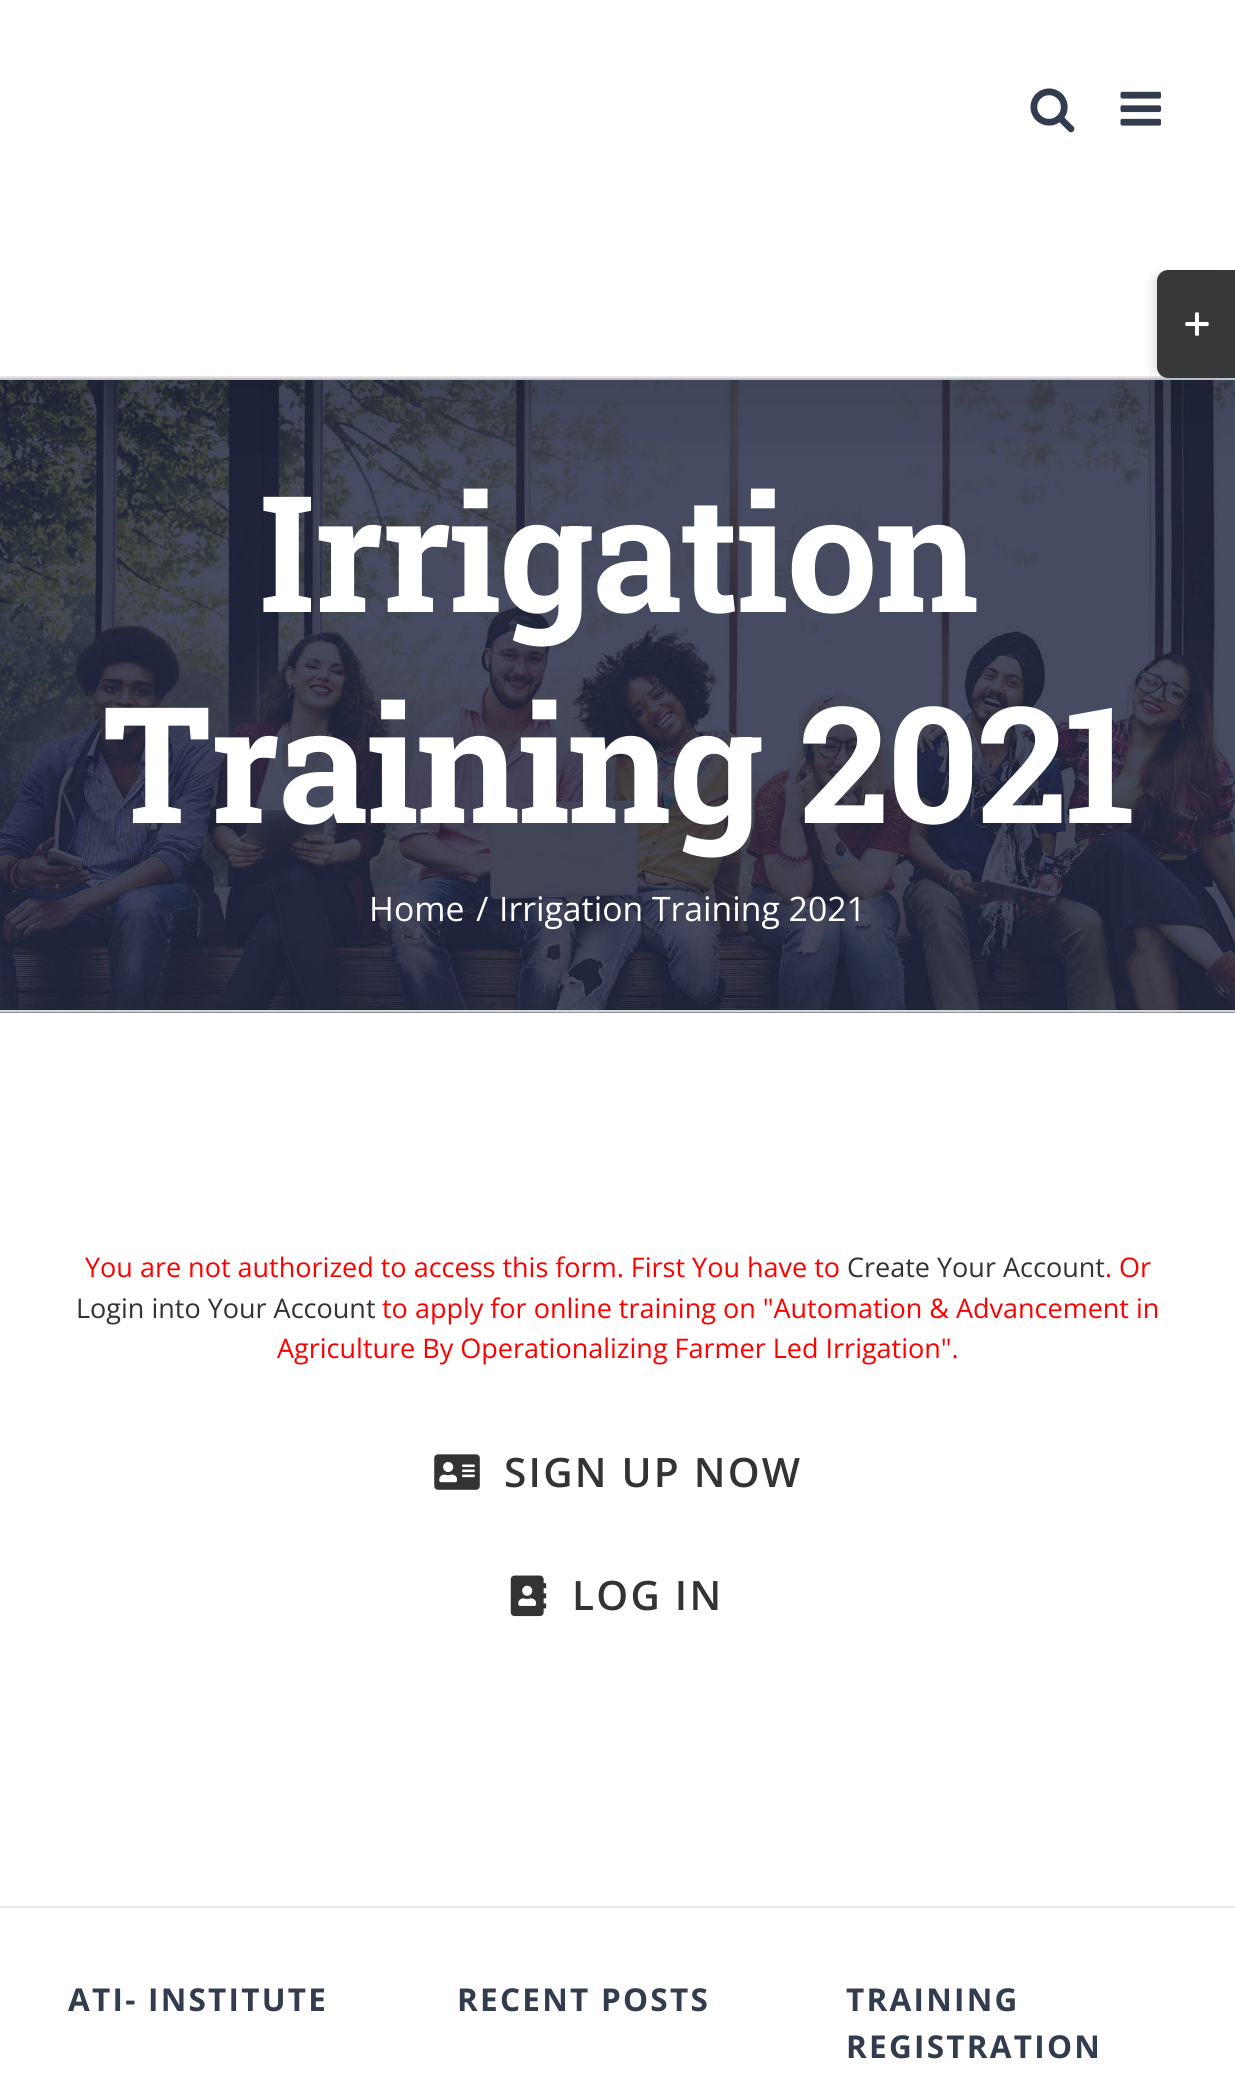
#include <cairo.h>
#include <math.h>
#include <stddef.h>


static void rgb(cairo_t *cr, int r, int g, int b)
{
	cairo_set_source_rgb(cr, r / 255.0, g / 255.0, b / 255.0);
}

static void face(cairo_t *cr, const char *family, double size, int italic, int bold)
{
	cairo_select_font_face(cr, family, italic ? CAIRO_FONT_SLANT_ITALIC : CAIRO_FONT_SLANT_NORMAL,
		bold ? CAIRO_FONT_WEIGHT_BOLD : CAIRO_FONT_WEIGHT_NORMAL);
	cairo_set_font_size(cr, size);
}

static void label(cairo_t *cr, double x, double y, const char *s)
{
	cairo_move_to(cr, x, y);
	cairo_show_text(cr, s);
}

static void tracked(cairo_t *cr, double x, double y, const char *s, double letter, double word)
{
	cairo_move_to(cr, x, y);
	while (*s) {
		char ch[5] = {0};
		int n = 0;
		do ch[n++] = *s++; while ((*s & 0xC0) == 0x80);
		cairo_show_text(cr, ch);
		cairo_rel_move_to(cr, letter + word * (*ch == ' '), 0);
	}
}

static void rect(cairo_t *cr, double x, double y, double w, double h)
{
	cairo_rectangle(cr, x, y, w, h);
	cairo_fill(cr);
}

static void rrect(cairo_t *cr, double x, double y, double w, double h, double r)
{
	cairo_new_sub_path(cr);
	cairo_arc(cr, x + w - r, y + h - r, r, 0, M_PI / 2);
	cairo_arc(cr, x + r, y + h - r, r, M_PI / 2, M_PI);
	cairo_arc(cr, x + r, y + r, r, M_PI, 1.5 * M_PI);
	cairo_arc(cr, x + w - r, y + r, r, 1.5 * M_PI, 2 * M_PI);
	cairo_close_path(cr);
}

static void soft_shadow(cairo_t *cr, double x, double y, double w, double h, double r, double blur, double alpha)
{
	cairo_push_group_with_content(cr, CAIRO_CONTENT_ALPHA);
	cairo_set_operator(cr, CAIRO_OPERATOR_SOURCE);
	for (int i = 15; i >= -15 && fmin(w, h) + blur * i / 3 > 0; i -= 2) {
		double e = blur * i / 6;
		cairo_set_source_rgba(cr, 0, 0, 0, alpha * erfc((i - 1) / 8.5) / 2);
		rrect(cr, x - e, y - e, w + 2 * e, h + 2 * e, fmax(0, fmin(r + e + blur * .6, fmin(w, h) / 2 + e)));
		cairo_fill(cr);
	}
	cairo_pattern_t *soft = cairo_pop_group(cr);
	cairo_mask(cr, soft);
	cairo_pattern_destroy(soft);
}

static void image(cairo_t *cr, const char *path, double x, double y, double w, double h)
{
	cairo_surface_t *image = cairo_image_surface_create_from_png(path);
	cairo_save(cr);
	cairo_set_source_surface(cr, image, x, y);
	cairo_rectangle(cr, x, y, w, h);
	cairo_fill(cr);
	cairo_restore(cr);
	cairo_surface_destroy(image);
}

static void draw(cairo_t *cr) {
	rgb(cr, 255, 255, 255);
	cairo_paint(cr);
	rgb(cr, 246, 246, 246);
	rect(cr, 0, 1012, 1235, 1);
	image(cr, "image3.png", 0, 380, 1235, 633);
	rgb(cr, 210, 211, 212);
	rect(cr, 0, 378, 1235, 2);
	cairo_save(cr);
	cairo_rectangle(cr, 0, 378, 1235, 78);
	cairo_clip(cr);
	rgb(cr, 0, 0, 0);
	soft_shadow(cr, 5, 27, 1226, 369, 0, 56, 0.14);
	cairo_restore(cr);
	rgb(cr, 229, 229, 229);
	rect(cr, 0, 376, 1168, 2);
	image(cr, "image0.png", 1030, 88, 45, 45);
	image(cr, "image1.png", 1120, 91, 41, 35);
	rgb(cr, 0, 0, 0);
	soft_shadow(cr, 1154, 275, 70, 99, 7, 5.5, 0.14);
	rgb(cr, 54, 56, 57);
	cairo_new_path(cr);
	cairo_move_to(cr, 1168, 270);
	cairo_line_to(cr, 1235, 270);
	cairo_line_to(cr, 1235, 378);
	cairo_line_to(cr, 1168, 378);
	cairo_curve_to(cr, 1162, 378, 1157, 373, 1157, 367);
	cairo_line_to(cr, 1157, 281);
	cairo_curve_to(cr, 1157, 275, 1162, 270, 1168, 270);
	cairo_close_path(cr);
	cairo_fill(cr);
	image(cr, "image2.png", 1185, 312, 24, 24);
	rgb(cr, 210, 211, 212);
	rect(cr, 0, 1010, 1235, 2);
	face(cr, "Roboto Slab", 162, 0, 1);
	rgb(cr, 255, 255, 255);
	tracked(cr, 259, 612, "Irrigation", -2.25, 0);
	tracked(cr, 102, 823, "Training 2021", -2.25, 0);
	face(cr, "Open Sans", 33.75, 0, 0);
	label(cr, 369, 921, "Home");
	label(cr, 476, 921, "/");
	label(cr, 499, 921, "Irrigation Training 2021");
	face(cr, "Open Sans", 27, 0, 0);
	rgb(cr, 255, 0, 0);
	label(cr, 85, 1277, "You are not authorized to access this form. First You have to");
	rgb(cr, 51, 51, 51);
	label(cr, 847, 1277, "Create Your Account");
	rgb(cr, 255, 0, 0);
	label(cr, 1105, 1277, ". Or");
	rgb(cr, 51, 51, 51);
	label(cr, 76, 1318, "Login into Your Account");
	rgb(cr, 255, 0, 0);
	label(cr, 382, 1318, "to apply for online training on \"Automation & Advancement in");
	label(cr, 277, 1358, "Agriculture By Operationalizing Farmer Led Irrigation\".");
	image(cr, "image4.png", 434, 1454, 46, 36);
	face(cr, "Open Sans SemiBold", 40.5, 0, 0);
	rgb(cr, 51, 51, 51);
	tracked(cr, 504, 1487, "SIGN UP NOW", 2.25, 0);
	image(cr, "image5.png", 510, 1575, 37, 42);
	tracked(cr, 572, 1610, "LOG IN", 2.25, 0);
	rgb(cr, 233, 234, 238);
	rect(cr, 0, 1906, 1235, 2);
	face(cr, "Open Sans", 31.5, 0, 1);
	rgb(cr, 51, 60, 78);
	tracked(cr, 68, 2011, "ATI- INSTITUTE", 2.25, 0);
	tracked(cr, 457, 2011, "RECENT POSTS", 2.25, 0);
	tracked(cr, 846, 2011, "TRAINING", 2.25, 0);
	tracked(cr, 846, 2058, "REGISTRATION", 2.25, 0);
}

int main(void) {
	cairo_surface_t *surface = cairo_image_surface_create(CAIRO_FORMAT_RGB24, 1235, 2087);
	cairo_t *cr = cairo_create(surface);
	cairo_font_options_t *options = cairo_font_options_create();
	cairo_font_options_set_hint_metrics(options, CAIRO_HINT_METRICS_OFF);
	cairo_font_options_set_hint_style(options, CAIRO_HINT_STYLE_NONE);
	cairo_set_font_options(cr, options);
	cairo_set_miter_limit(cr, 4);
	draw(cr);
	cairo_surface_write_to_png(surface, "render.png");
	cairo_font_options_destroy(options);
	cairo_destroy(cr);
	cairo_surface_destroy(surface);
	return 0;
}
